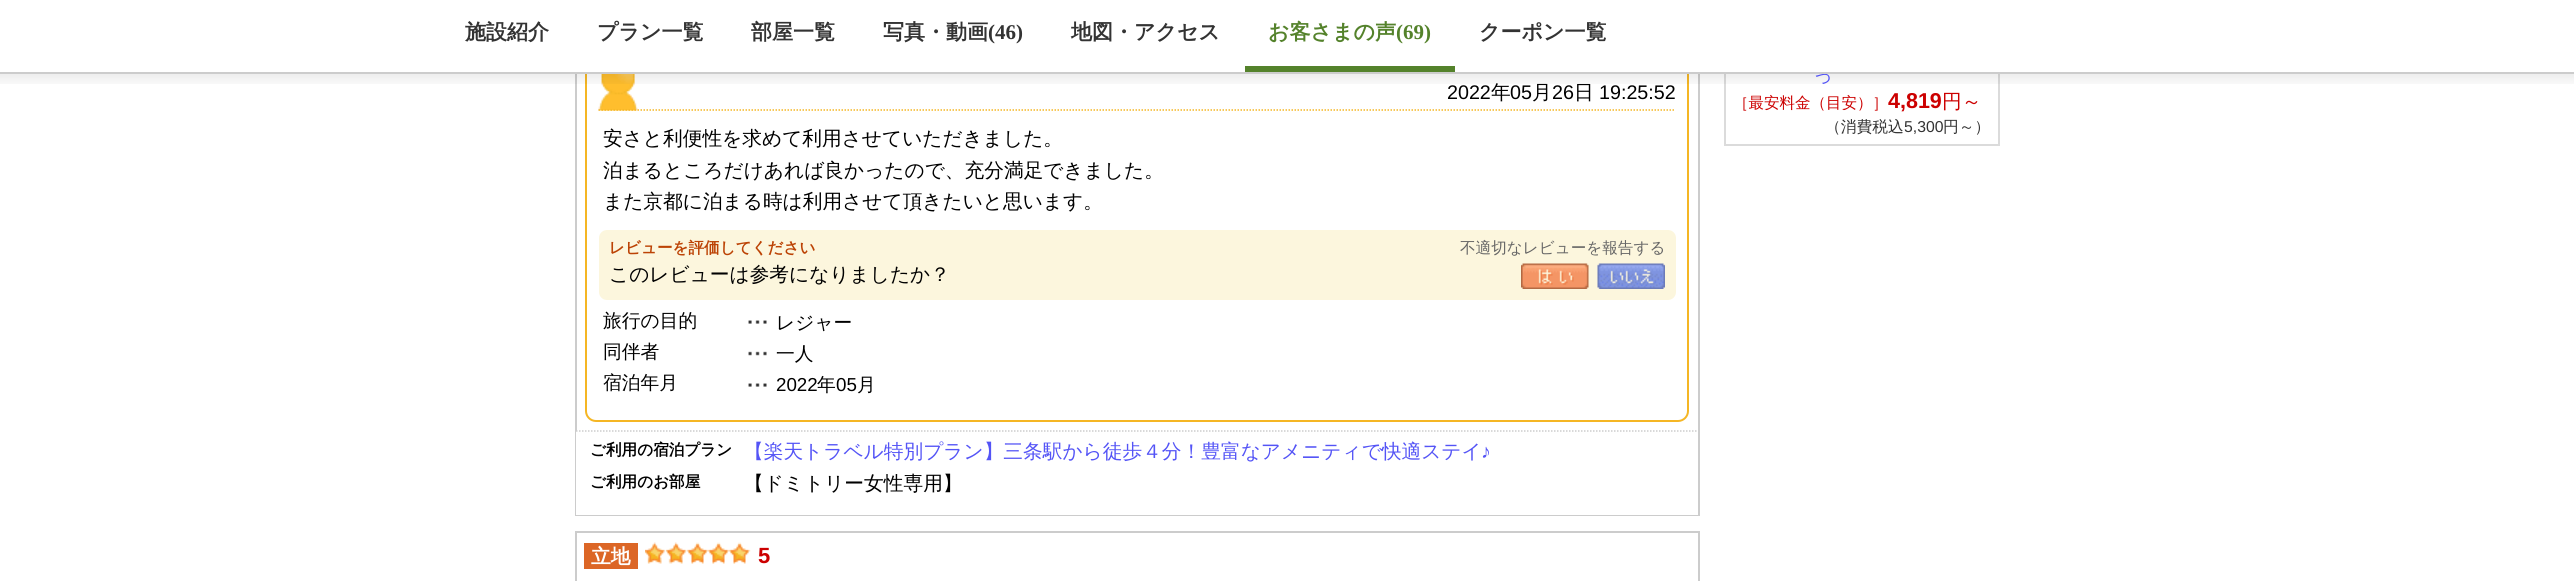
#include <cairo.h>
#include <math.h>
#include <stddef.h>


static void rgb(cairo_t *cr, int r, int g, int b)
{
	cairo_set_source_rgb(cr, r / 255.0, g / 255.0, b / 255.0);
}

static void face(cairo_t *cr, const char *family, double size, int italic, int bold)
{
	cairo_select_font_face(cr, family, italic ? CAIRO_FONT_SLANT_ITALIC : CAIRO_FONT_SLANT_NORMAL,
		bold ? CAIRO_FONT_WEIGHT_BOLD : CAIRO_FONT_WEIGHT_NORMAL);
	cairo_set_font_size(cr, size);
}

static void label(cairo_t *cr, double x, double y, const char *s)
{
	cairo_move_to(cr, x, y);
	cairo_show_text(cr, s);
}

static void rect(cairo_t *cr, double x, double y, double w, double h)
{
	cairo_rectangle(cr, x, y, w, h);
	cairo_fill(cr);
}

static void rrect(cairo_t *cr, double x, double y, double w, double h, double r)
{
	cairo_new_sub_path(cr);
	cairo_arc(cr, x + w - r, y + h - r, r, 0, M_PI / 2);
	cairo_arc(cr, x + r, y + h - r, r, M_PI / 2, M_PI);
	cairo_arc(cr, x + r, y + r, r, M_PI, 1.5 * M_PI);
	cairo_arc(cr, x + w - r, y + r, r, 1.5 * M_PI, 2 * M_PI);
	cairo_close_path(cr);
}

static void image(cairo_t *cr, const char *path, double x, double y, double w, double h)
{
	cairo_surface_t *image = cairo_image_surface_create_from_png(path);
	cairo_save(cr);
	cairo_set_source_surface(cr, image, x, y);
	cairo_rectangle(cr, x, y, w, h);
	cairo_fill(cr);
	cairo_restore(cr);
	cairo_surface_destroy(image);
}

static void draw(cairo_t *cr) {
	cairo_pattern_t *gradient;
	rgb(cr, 255, 255, 255);
	cairo_paint(cr);
	cairo_rectangle(cr, 576, -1, 1123, 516);
	rgb(cr, 204, 204, 204);
	cairo_stroke(cr);
	rrect(cr, 586, 49, 1102, 372, 10);
	rgb(cr, 245, 182, 36);
	cairo_stroke(cr);
	cairo_rectangle(cr, 1725, -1, 274, 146);
	rgb(cr, 219, 219, 219);
	cairo_stroke(cr);
	rgb(cr, 255, 255, 255);
	rect(cr, 575, 0, 1425, 72);
	face(cr, "WenQuanYi Zen Hei", 21, 0, 1);
	rgb(cr, 51, 51, 51);
	label(cr, 465, 39, "施設紹介");
	label(cr, 597, 39, "プラン一覧");
	label(cr, 751, 39, "部屋一覧");
	label(cr, 883, 39, "写真・動画");
	face(cr, "Liberation Serif", 21, 0, 1);
	label(cr, 988, 39, "(46)");
	face(cr, "WenQuanYi Zen Hei", 21, 0, 1);
	label(cr, 1071, 39, "地図・アクセス");
	rgb(cr, 84, 130, 43);
	rect(cr, 1245, 66, 210, 6);
	label(cr, 1268, 39, "お客さまの声");
	face(cr, "Liberation Serif", 21, 0, 1);
	label(cr, 1396, 39, "(69)");
	face(cr, "WenQuanYi Zen Hei", 21, 0, 1);
	rgb(cr, 51, 51, 51);
	label(cr, 1479, 39, "クーポン一覧");
	image(cr, "image0.png", 598, 74, 40, 37);
	gradient = cairo_pattern_create_linear(1287, 89, 1287, 74);
	cairo_pattern_add_color_stop_rgba(gradient, 0, 0, 0, 0, 0);
	cairo_pattern_add_color_stop_rgba(gradient, 1, 0, 0, 0, 0.07);
	cairo_set_source(cr, gradient);
	cairo_pattern_destroy(gradient);
	rect(cr, 0, 74, 2574, 10);
	face(cr, "WenQuanYi Zen Hei Medium", 19.7, 0, 0);
	rgb(cr, 84, 84, 246);
	label(cr, 1813, 82, "っ");
	rgb(cr, 204, 204, 204);
	rect(cr, 0, 72, 2574, 2);
	cairo_new_path(cr);
	cairo_move_to(cr, 598.5, 110);
	cairo_line_to(cr, 1675.5, 110);
	rgb(cr, 245, 182, 36);
	cairo_set_line_width(cr, 1.5);
	cairo_set_dash(cr, (double[]){1.5, 1.5}, 2, 0);
	cairo_stroke(cr);
	face(cr, "Liberation Sans", 19.7, 0, 0);
	rgb(cr, 0, 0, 0);
	label(cr, 1447, 99, "2022");
	face(cr, "WenQuanYi Zen Hei Medium", 19.7, 0, 0);
	label(cr, 1491, 99, "年");
	face(cr, "Liberation Sans", 19.7, 0, 0);
	label(cr, 1510, 99, "05");
	face(cr, "WenQuanYi Zen Hei Medium", 19.7, 0, 0);
	label(cr, 1532, 99, "月");
	face(cr, "Liberation Sans", 19.7, 0, 0);
	label(cr, 1552, 99, "26");
	face(cr, "WenQuanYi Zen Hei Medium", 19.7, 0, 0);
	label(cr, 1574, 99, "日");
	face(cr, "Liberation Sans", 19.7, 0, 0);
	label(cr, 1599, 99, "19:25:52");
	face(cr, "WenQuanYi Zen Hei Medium", 19.7, 0, 0);
	label(cr, 603, 145, "安さと利便性を求めて利用させていただきました。");
	label(cr, 603, 177, "泊まるところだけあれば良かったので、充分満足できました。");
	label(cr, 603, 208, "また京都に泊まる時は利用させて頂きたいと思います。");
	rgb(cr, 252, 246, 221);
	rrect(cr, 599, 230, 1077, 70, 8);
	cairo_fill(cr);
	face(cr, "WenQuanYi Zen Hei", 15.6, 0, 1);
	rgb(cr, 188, 67, 5);
	label(cr, 609, 253, "レビューを評価してください");
	face(cr, "WenQuanYi Zen Hei Medium", 15.6, 0, 0);
	rgb(cr, 102, 102, 102);
	label(cr, 1460, 253, "不適切なレビューを報告する");
	face(cr, "WenQuanYi Zen Hei Medium", 19.7, 0, 0);
	rgb(cr, 0, 0, 0);
	label(cr, 609, 281, "このレビューは参考になりましたか？");
	image(cr, "image1.png", 1521, 263, 68, 26);
	image(cr, "image2.png", 1597, 263, 68, 26);
	face(cr, "WenQuanYi Zen Hei Medium", 18.75, 0, 0);
	label(cr, 603, 327, "旅行の目的");
	image(cr, "image3.png", 748, 320, 19, 4);
	label(cr, 776, 329, "レジャー");
	label(cr, 603, 358, "同伴者");
	image(cr, "image4.png", 748, 351, 19, 5);
	label(cr, 776, 360, "一人");
	label(cr, 603, 389, "宿泊年月");
	image(cr, "image3.png", 748, 383, 19, 4);
	face(cr, "Liberation Sans", 18.75, 0, 0);
	label(cr, 776, 391, "2022");
	face(cr, "WenQuanYi Zen Hei Medium", 18.75, 0, 0);
	label(cr, 817, 391, "年");
	face(cr, "Liberation Sans", 18.75, 0, 0);
	label(cr, 836, 391, "05");
	face(cr, "WenQuanYi Zen Hei Medium", 18.75, 0, 0);
	label(cr, 857, 391, "月");
	rgb(cr, 255, 255, 255);
	rect(cr, 576, 431, 1122, 84);
	cairo_new_path(cr);
	cairo_move_to(cr, 576, 431);
	cairo_line_to(cr, 1698, 431);
	rgb(cr, 204, 204, 204);
	cairo_stroke(cr);
	face(cr, "WenQuanYi Zen Hei", 15.6, 0, 1);
	rgb(cr, 0, 0, 0);
	label(cr, 590, 455, "ご利用の宿泊プラン");
	face(cr, "WenQuanYi Zen Hei Medium", 19.7, 0, 0);
	rgb(cr, 84, 84, 246);
	label(cr, 744, 458, "【楽天トラベル特別プラン】三条駅から徒歩４分！豊富なアメニティで快適ステイ");
	face(cr, "Liberation Sans", 19.7, 0, 0);
	label(cr, 1481, 458, "♪");
	face(cr, "WenQuanYi Zen Hei", 15.6, 0, 1);
	rgb(cr, 0, 0, 0);
	label(cr, 590, 487, "ご利用のお部屋");
	face(cr, "WenQuanYi Zen Hei Medium", 19.7, 0, 0);
	label(cr, 744, 490, "【ドミトリー女性専用】");
	cairo_rectangle(cr, 576, 532, 1123, 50);
	rgb(cr, 204, 204, 204);
	cairo_set_line_width(cr, 2);
	cairo_set_dash(cr, NULL, 0, 0);
	cairo_stroke(cr);
	rgb(cr, 220, 102, 38);
	rect(cr, 584, 543, 54, 26);
	face(cr, "WenQuanYi Zen Hei", 19.7, 0, 1);
	rgb(cr, 255, 255, 255);
	label(cr, 591, 563, "立地");
	image(cr, "image5.png", 645, 542, 106, 22);
	face(cr, "Liberation Sans", 22, 0, 1);
	rgb(cr, 204, 0, 0);
	label(cr, 758, 563, "5");
	face(cr, "WenQuanYi Zen Hei Medium", 15.5, 0, 0);
	label(cr, 1733, 108, "［最安料金（目安）］");
	face(cr, "Liberation Sans", 21.5, 0, 1);
	label(cr, 1888, 108, "4,819");
	face(cr, "WenQuanYi Zen Hei Medium", 19.7, 0, 0);
	label(cr, 1942, 108, "円～");
	face(cr, "WenQuanYi Zen Hei Medium", 15.75, 0, 0);
	rgb(cr, 51, 51, 51);
	label(cr, 1825, 132, "（消費税込");
	face(cr, "Liberation Sans", 15.75, 0, 0);
	label(cr, 1904, 132, "5,300");
	face(cr, "WenQuanYi Zen Hei Medium", 15.75, 0, 0);
	label(cr, 1943, 132, "円～）");
}

int main(void) {
	cairo_surface_t *surface = cairo_image_surface_create(CAIRO_FORMAT_RGB24, 2574, 581);
	cairo_t *cr = cairo_create(surface);
	cairo_font_options_t *options = cairo_font_options_create();
	cairo_font_options_set_hint_metrics(options, CAIRO_HINT_METRICS_OFF);
	cairo_font_options_set_hint_style(options, CAIRO_HINT_STYLE_NONE);
	cairo_set_font_options(cr, options);
	cairo_set_miter_limit(cr, 4);
	draw(cr);
	cairo_surface_write_to_png(surface, "render.png");
	cairo_font_options_destroy(options);
	cairo_destroy(cr);
	cairo_surface_destroy(surface);
	return 0;
}
